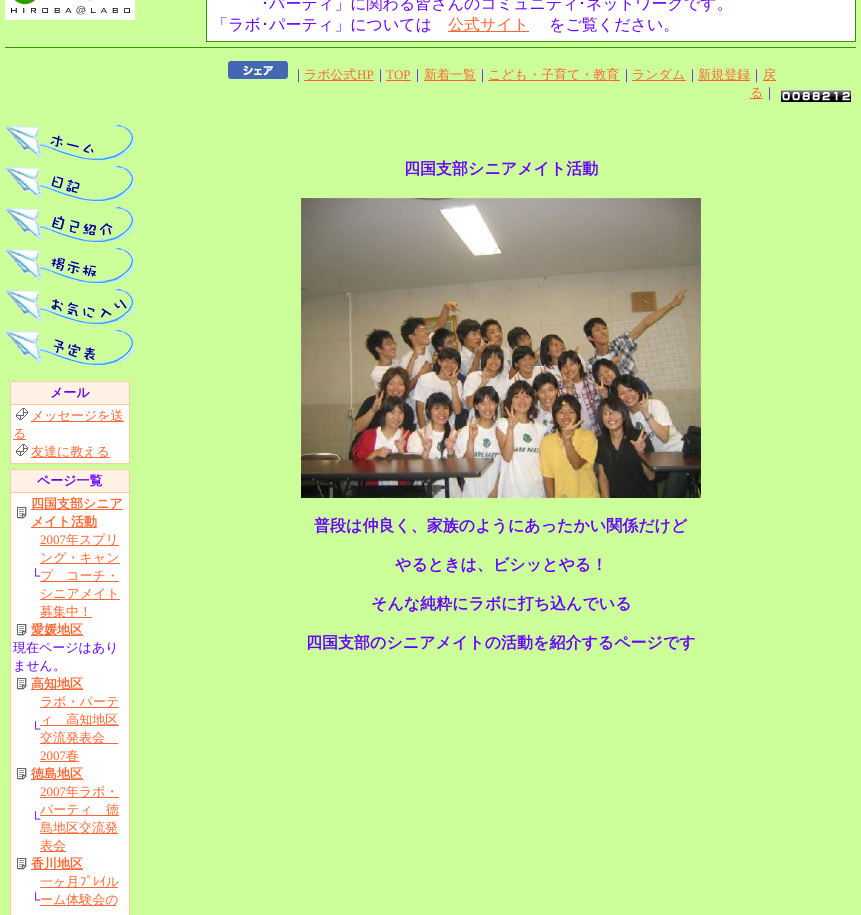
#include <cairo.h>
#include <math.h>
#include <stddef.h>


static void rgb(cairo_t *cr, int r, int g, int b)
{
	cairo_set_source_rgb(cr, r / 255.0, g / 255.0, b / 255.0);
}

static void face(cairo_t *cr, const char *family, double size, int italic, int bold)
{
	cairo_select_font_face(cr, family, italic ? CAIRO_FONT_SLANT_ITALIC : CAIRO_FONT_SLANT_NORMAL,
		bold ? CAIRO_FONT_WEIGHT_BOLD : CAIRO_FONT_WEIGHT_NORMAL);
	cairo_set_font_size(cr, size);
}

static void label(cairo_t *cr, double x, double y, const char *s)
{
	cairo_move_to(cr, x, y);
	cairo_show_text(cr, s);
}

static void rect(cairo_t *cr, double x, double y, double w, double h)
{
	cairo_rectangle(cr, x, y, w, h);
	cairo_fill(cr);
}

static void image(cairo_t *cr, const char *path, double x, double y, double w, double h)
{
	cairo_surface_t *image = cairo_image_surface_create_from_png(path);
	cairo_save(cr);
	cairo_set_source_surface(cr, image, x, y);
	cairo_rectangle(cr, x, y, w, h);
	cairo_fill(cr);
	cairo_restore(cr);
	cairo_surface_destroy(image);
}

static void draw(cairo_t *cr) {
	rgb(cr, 204, 255, 153);
	cairo_paint(cr);
	rgb(cr, 255, 255, 255);
	rect(cr, 5, 0, 130, 20);
	image(cr, "image0.png", 11, 0, 119, 15);
	rgb(cr, 51, 153, 0);
	rect(cr, 206, 0, 650, 42);
	rgb(cr, 255, 255, 255);
	rect(cr, 207, 0, 648, 41);
	face(cr, "IPAPGothic", 16, 0, 0);
	rgb(cr, 102, 0, 255);
	label(cr, 261, 9, "･");
	face(cr, "WenQuanYi Zen Hei Medium", 16, 0, 0);
	label(cr, 269, 9, "パーティ」に関わる皆さんのコミュニティ");
	face(cr, "IPAPGothic", 16, 0, 0);
	label(cr, 578, 9, "･");
	face(cr, "WenQuanYi Zen Hei Medium", 16, 0, 0);
	label(cr, 586, 9, "ネットワークです。");
	label(cr, 212, 30, "「ラボ");
	face(cr, "IPAPGothic", 16, 0, 0);
	label(cr, 261, 30, "･");
	face(cr, "WenQuanYi Zen Hei Medium", 16, 0, 0);
	label(cr, 269, 30, "パーティ」については");
	rgb(cr, 255, 102, 51);
	rect(cr, 448, 31, 81, 1);
	label(cr, 448, 30, "公式サイト");
	rgb(cr, 102, 0, 255);
	label(cr, 549, 30, "をご覧ください。");
	rgb(cr, 51, 153, 0);
	rect(cr, 5, 47, 851, 1);
	image(cr, "image1.png", 228, 61, 60, 18);
	face(cr, "WenQuanYi Zen Hei Medium", 13, 0, 0);
	rgb(cr, 102, 0, 255);
	label(cr, 292, 79, "｜");
	rgb(cr, 255, 102, 51);
	rect(cr, 304, 80, 70, 1);
	label(cr, 304, 79, "ラボ公式");
	face(cr, "Liberation Serif", 13, 0, 0);
	label(cr, 357, 79, "HP");
	face(cr, "WenQuanYi Zen Hei Medium", 13, 0, 0);
	rgb(cr, 102, 0, 255);
	label(cr, 374, 79, "｜");
	face(cr, "Liberation Serif", 13, 0, 0);
	rgb(cr, 255, 102, 51);
	label(cr, 386, 79, "TOP");
	rect(cr, 386, 80, 25, 1);
	face(cr, "WenQuanYi Zen Hei Medium", 13, 0, 0);
	rgb(cr, 102, 0, 255);
	label(cr, 411, 79, "｜");
	rgb(cr, 255, 102, 51);
	rect(cr, 424, 80, 52, 1);
	label(cr, 424, 79, "新着一覧");
	rgb(cr, 102, 0, 255);
	label(cr, 476, 79, "｜");
	rgb(cr, 255, 102, 51);
	rect(cr, 488, 80, 132, 1);
	label(cr, 488, 79, "こども・子育て・教育");
	rgb(cr, 102, 0, 255);
	label(cr, 620, 79, "｜");
	rgb(cr, 255, 102, 51);
	rect(cr, 632, 80, 54, 1);
	label(cr, 632, 79, "ランダム");
	rgb(cr, 102, 0, 255);
	label(cr, 686, 79, "｜");
	rgb(cr, 255, 102, 51);
	rect(cr, 698, 80, 52, 1);
	label(cr, 698, 79, "新規登録");
	rgb(cr, 102, 0, 255);
	label(cr, 750, 79, "｜");
	rgb(cr, 255, 102, 51);
	rect(cr, 763, 80, 13, 1);
	label(cr, 763, 79, "戻");
	rect(cr, 750, 98, 13, 1);
	label(cr, 750, 97, "る");
	rgb(cr, 102, 0, 255);
	label(cr, 763, 97, "｜");
	image(cr, "image2.png", 781, 90, 10, 12);
	image(cr, "image2.png", 791, 90, 10, 12);
	image(cr, "image3.png", 801, 90, 10, 12);
	image(cr, "image3.png", 811, 90, 10, 12);
	image(cr, "image4.png", 821, 90, 10, 12);
	image(cr, "image5.png", 831, 90, 10, 12);
	image(cr, "image4.png", 841, 90, 10, 12);
	image(cr, "image6.png", 5, 125, 130, 36);
	image(cr, "image7.png", 5, 166, 130, 36);
	image(cr, "image8.png", 5, 207, 130, 36);
	image(cr, "image9.png", 5, 248, 130, 36);
	image(cr, "image10.png", 5, 289, 130, 36);
	image(cr, "image11.png", 5, 330, 130, 36);
	rgb(cr, 255, 204, 153);
	rect(cr, 10, 381, 120, 83);
	rgb(cr, 255, 242, 229);
	rect(cr, 11, 382, 118, 22);
	face(cr, "WenQuanYi Zen Hei", 13, 0, 1);
	rgb(cr, 102, 0, 255);
	label(cr, 50, 397, "メール");
	rgb(cr, 255, 255, 255);
	rect(cr, 11, 405, 118, 58);
	image(cr, "image12.png", 16, 408, 12, 12);
	rgb(cr, 255, 102, 51);
	rect(cr, 31, 421, 93, 1);
	face(cr, "WenQuanYi Zen Hei Medium", 13, 0, 0);
	label(cr, 31, 420, "メッセージを送");
	rect(cr, 13, 439, 13, 1);
	label(cr, 13, 438, "る");
	image(cr, "image12.png", 16, 444, 12, 12);
	rect(cr, 31, 457, 79, 1);
	label(cr, 31, 456, "友達に教える");
	rgb(cr, 255, 204, 153);
	rect(cr, 10, 469, 120, 446);
	rgb(cr, 255, 242, 229);
	rect(cr, 11, 470, 118, 22);
	face(cr, "WenQuanYi Zen Hei", 13, 0, 1);
	rgb(cr, 102, 0, 255);
	label(cr, 37, 485, "ページ一覧");
	rgb(cr, 255, 255, 255);
	rect(cr, 11, 493, 118, 422);
	image(cr, "image13.png", 17, 507, 10, 12);
	rgb(cr, 255, 102, 51);
	rect(cr, 31, 509, 92, 1);
	label(cr, 31, 508, "四国支部シニア");
	rect(cr, 31, 527, 66, 1);
	label(cr, 31, 526, "メイト活動");
	face(cr, "Liberation Serif", 13, 0, 0);
	rgb(cr, 102, 0, 255);
	label(cr, 31, 580, "└");
	rgb(cr, 255, 102, 51);
	label(cr, 40, 544, "2007");
	rect(cr, 40, 545, 79, 1);
	face(cr, "WenQuanYi Zen Hei Medium", 13, 0, 0);
	label(cr, 66, 544, "年スプリ");
	rect(cr, 40, 563, 80, 1);
	label(cr, 40, 562, "ング・キャン");
	rect(cr, 40, 581, 79, 1);
	label(cr, 40, 580, "プ　コーチ・");
	rect(cr, 40, 599, 80, 1);
	label(cr, 40, 598, "シニアメイト");
	rect(cr, 40, 617, 52, 1);
	label(cr, 40, 616, "募集中！");
	image(cr, "image13.png", 17, 624, 10, 12);
	rect(cr, 31, 635, 52, 1);
	face(cr, "WenQuanYi Zen Hei", 13, 0, 1);
	label(cr, 31, 634, "愛媛地区");
	face(cr, "WenQuanYi Zen Hei Medium", 13, 0, 0);
	rgb(cr, 102, 0, 255);
	label(cr, 13, 652, "現在ページはあり");
	label(cr, 13, 670, "ません。");
	image(cr, "image13.png", 17, 678, 10, 12);
	rgb(cr, 255, 102, 51);
	rect(cr, 31, 689, 52, 1);
	face(cr, "WenQuanYi Zen Hei", 13, 0, 1);
	label(cr, 31, 688, "高知地区");
	face(cr, "Liberation Serif", 13, 0, 0);
	rgb(cr, 102, 0, 255);
	label(cr, 31, 733, "└");
	rgb(cr, 255, 102, 51);
	rect(cr, 40, 707, 79, 1);
	face(cr, "WenQuanYi Zen Hei Medium", 13, 0, 0);
	label(cr, 40, 706, "ラボ・パーテ");
	rect(cr, 40, 725, 79, 1);
	label(cr, 40, 724, "ィ　高知地区");
	rect(cr, 40, 743, 78, 1);
	label(cr, 40, 742, "交流発表会");
	face(cr, "Liberation Serif", 13, 0, 0);
	label(cr, 40, 760, "2007");
	rect(cr, 40, 761, 39, 1);
	face(cr, "WenQuanYi Zen Hei Medium", 13, 0, 0);
	label(cr, 66, 760, "春");
	image(cr, "image13.png", 17, 768, 10, 12);
	rect(cr, 31, 779, 52, 1);
	face(cr, "WenQuanYi Zen Hei", 13, 0, 1);
	label(cr, 31, 778, "徳島地区");
	face(cr, "Liberation Serif", 13, 0, 0);
	rgb(cr, 102, 0, 255);
	label(cr, 31, 823, "└");
	rgb(cr, 255, 102, 51);
	label(cr, 40, 796, "2007");
	rect(cr, 40, 797, 79, 1);
	face(cr, "WenQuanYi Zen Hei Medium", 13, 0, 0);
	label(cr, 66, 796, "年ラボ・");
	rect(cr, 40, 815, 79, 1);
	label(cr, 40, 814, "パーティ　徳");
	rect(cr, 40, 833, 78, 1);
	label(cr, 40, 832, "島地区交流発");
	rect(cr, 40, 851, 26, 1);
	label(cr, 40, 850, "表会");
	image(cr, "image13.png", 17, 858, 10, 12);
	rect(cr, 31, 869, 52, 1);
	face(cr, "WenQuanYi Zen Hei", 13, 0, 1);
	label(cr, 31, 868, "香川地区");
	face(cr, "Liberation Serif", 13, 0, 0);
	rgb(cr, 102, 0, 255);
	label(cr, 31, 904, "└");
	rgb(cr, 255, 102, 51);
	rect(cr, 40, 887, 78, 1);
	face(cr, "WenQuanYi Zen Hei Medium", 13, 0, 0);
	label(cr, 40, 886, "一ヶ月");
	face(cr, "IPAPGothic", 13, 0, 0);
	label(cr, 80, 886, "ﾌﾟﾚｲ");
	face(cr, "WenQuanYi Zen Hei Medium", 13, 0, 0);
	label(cr, 106, 886, "ル");
	rect(cr, 40, 905, 76, 1);
	label(cr, 40, 904, "ーム体験会の");
	face(cr, "WenQuanYi Zen Hei", 16, 0, 1);
	rgb(cr, 102, 0, 255);
	label(cr, 404, 174, "四国支部シニアメイト活動");
	image(cr, "image14.png", 301, 198, 400, 300);
	label(cr, 314, 531, "普段は仲良く、家族のようにあったかい関係だけど");
	label(cr, 395, 570, "やるときは、ビシッとやる！");
	label(cr, 371, 609, "そんな純粋にラボに打ち込んでいる");
	label(cr, 306, 648, "四国支部のシニアメイトの活動を紹介するページです");
}

int main(void) {
	cairo_surface_t *surface = cairo_image_surface_create(CAIRO_FORMAT_RGB24, 861, 915);
	cairo_t *cr = cairo_create(surface);
	cairo_font_options_t *options = cairo_font_options_create();
	cairo_font_options_set_hint_metrics(options, CAIRO_HINT_METRICS_OFF);
	cairo_font_options_set_hint_style(options, CAIRO_HINT_STYLE_NONE);
	cairo_set_font_options(cr, options);
	cairo_set_miter_limit(cr, 4);
	draw(cr);
	cairo_surface_write_to_png(surface, "render.png");
	cairo_font_options_destroy(options);
	cairo_destroy(cr);
	cairo_surface_destroy(surface);
	return 0;
}
